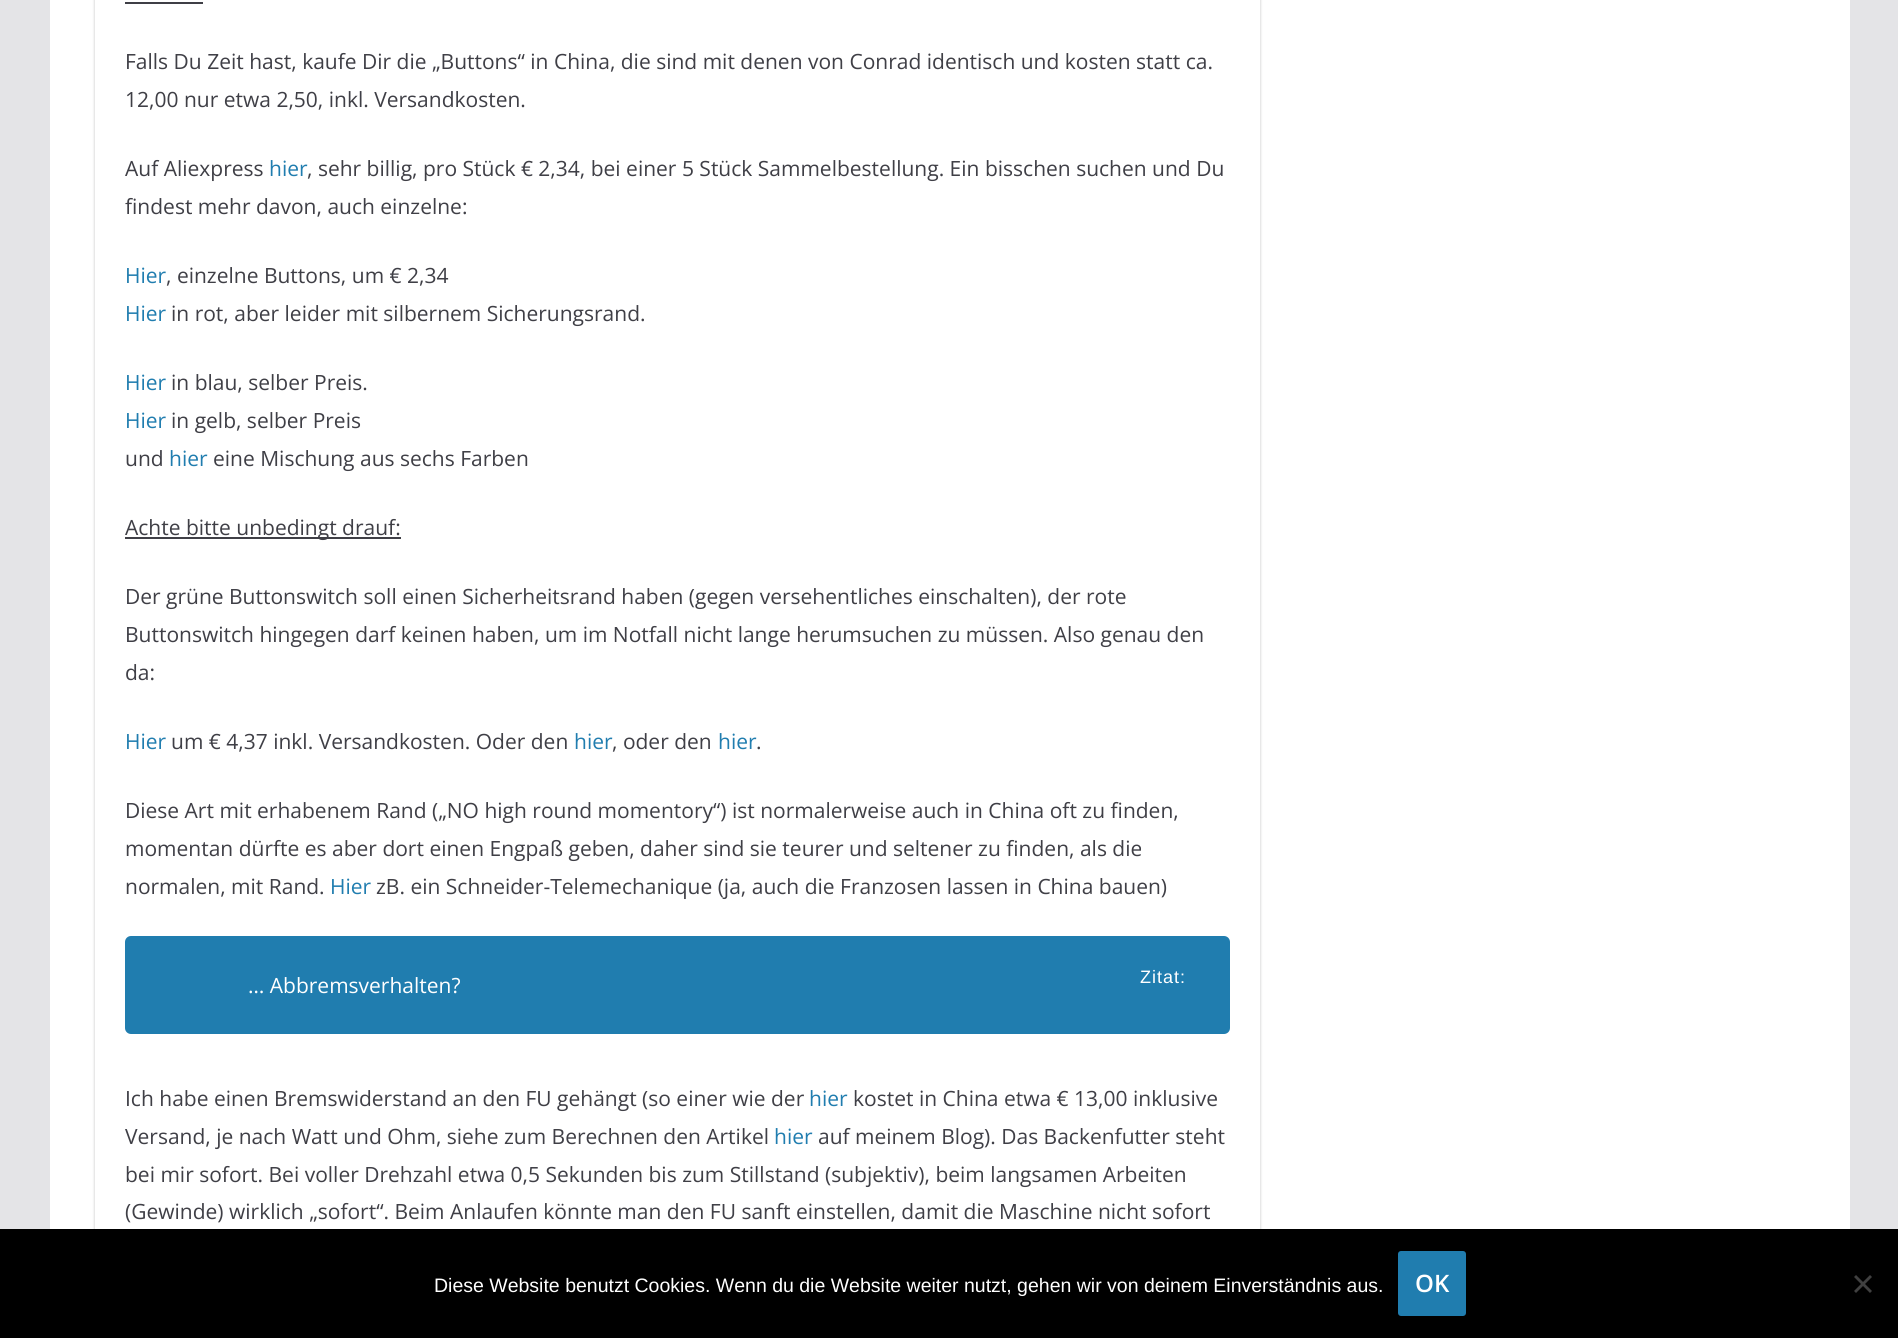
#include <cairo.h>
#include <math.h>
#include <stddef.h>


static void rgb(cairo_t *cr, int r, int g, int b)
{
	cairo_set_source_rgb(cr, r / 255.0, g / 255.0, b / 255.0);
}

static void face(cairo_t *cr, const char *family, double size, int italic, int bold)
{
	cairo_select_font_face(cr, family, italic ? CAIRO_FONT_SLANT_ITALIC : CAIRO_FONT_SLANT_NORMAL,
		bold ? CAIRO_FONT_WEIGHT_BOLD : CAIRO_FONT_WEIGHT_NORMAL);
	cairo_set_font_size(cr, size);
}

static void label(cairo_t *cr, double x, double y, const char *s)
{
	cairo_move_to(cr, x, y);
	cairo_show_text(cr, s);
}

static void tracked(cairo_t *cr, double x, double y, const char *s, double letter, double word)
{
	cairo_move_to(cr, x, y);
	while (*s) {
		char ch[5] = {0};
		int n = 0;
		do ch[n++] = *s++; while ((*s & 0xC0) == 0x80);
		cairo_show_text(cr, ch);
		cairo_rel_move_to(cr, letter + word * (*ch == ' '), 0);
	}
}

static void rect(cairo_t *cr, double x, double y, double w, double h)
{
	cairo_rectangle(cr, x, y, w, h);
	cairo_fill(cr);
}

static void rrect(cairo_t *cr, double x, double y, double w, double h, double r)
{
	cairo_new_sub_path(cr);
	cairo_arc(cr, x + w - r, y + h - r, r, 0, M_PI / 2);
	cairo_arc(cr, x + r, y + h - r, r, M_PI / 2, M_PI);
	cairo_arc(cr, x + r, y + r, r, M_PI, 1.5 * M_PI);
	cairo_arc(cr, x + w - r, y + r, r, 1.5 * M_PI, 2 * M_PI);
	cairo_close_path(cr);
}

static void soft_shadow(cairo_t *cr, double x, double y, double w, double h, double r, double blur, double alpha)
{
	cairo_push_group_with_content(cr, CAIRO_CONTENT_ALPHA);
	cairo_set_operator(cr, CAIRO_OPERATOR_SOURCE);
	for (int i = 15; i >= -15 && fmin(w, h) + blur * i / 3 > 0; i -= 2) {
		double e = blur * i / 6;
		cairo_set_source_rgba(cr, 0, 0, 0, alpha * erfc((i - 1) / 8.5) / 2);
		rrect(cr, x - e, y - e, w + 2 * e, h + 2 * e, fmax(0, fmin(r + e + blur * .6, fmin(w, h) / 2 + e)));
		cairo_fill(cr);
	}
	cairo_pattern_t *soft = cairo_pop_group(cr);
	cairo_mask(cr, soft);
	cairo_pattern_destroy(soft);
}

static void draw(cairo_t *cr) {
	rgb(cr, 228, 228, 231);
	cairo_paint(cr);
	rgb(cr, 255, 255, 255);
	rect(cr, 50, 0, 1800, 1229);
	cairo_save(cr);
	cairo_set_fill_rule(cr, CAIRO_FILL_RULE_EVEN_ODD);
	cairo_new_path(cr);
	cairo_move_to(cr, 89, 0);
	cairo_line_to(cr, 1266, 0);
	cairo_line_to(cr, 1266, 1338);
	cairo_line_to(cr, 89, 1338);
	cairo_close_path(cr);
	cairo_move_to(cr, 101, -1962);
	cairo_line_to(cr, 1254, -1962);
	cairo_curve_to(cr, 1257.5, -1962, 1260, -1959.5, 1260, -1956);
	cairo_line_to(cr, 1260, 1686);
	cairo_curve_to(cr, 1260, 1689.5, 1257.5, 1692, 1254, 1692);
	cairo_line_to(cr, 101, 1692);
	cairo_curve_to(cr, 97.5, 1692, 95, 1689.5, 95, 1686);
	cairo_line_to(cr, 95, -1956);
	cairo_curve_to(cr, 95, -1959.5, 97.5, -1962, 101, -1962);
	cairo_close_path(cr);
	cairo_clip(cr);
	rgb(cr, 0, 0, 0);
	soft_shadow(cr, 95, -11, 1165, 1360, 6, 1.5, 0.24);
	cairo_restore(cr);
	rgb(cr, 63, 63, 70);
	rect(cr, 125, 2, 78, 2);
	face(cr, "Open Sans", 21, 0, 0);
	label(cr, 125, 69, "Falls Du Zeit hast, kaufe Dir die „Buttons“ in China, die sind mit denen von Conrad identisch und kosten statt ca.");
	label(cr, 125, 107, "12,00 nur etwa 2,50, inkl. Versandkosten.");
	label(cr, 125, 176, "Auf Aliexpress");
	rgb(cr, 32, 125, 175);
	label(cr, 269, 176, "hier");
	rgb(cr, 63, 63, 70);
	label(cr, 307, 176, ", sehr billig, pro Stück € 2,34, bei einer 5 Stück Sammelbestellung. Ein bisschen suchen und Du");
	label(cr, 125, 214, "findest mehr davon, auch einzelne:");
	rgb(cr, 32, 125, 175);
	label(cr, 125, 283, "Hier");
	rgb(cr, 63, 63, 70);
	label(cr, 166, 283, ", einzelne Buttons, um € 2,34");
	rgb(cr, 32, 125, 175);
	label(cr, 125, 321, "Hier");
	rgb(cr, 63, 63, 70);
	label(cr, 171, 321, "in rot, aber leider mit silbernem Sicherungsrand.");
	rgb(cr, 32, 125, 175);
	label(cr, 125, 390, "Hier");
	rgb(cr, 63, 63, 70);
	label(cr, 171, 390, "in blau, selber Preis.");
	rgb(cr, 32, 125, 175);
	label(cr, 125, 428, "Hier");
	rgb(cr, 63, 63, 70);
	label(cr, 171, 428, "in gelb, selber Preis");
	label(cr, 125, 466, "und");
	rgb(cr, 32, 125, 175);
	label(cr, 169, 466, "hier");
	rgb(cr, 63, 63, 70);
	label(cr, 213, 466, "eine Mischung aus sechs Farben");
	rect(cr, 125, 537, 276, 2);
	label(cr, 125, 535, "Achte bitte unbedingt drauf:");
	label(cr, 125, 604, "Der grüne Buttonswitch soll einen Sicherheitsrand haben (gegen versehentliches einschalten), der rote");
	label(cr, 125, 642, "Buttonswitch hingegen darf keinen haben, um im Notfall nicht lange herumsuchen zu müssen. Also genau den");
	label(cr, 125, 680, "da:");
	rgb(cr, 32, 125, 175);
	label(cr, 125, 749, "Hier");
	rgb(cr, 63, 63, 70);
	label(cr, 171, 749, "um € 4,37 inkl. Versandkosten. Oder den");
	rgb(cr, 32, 125, 175);
	label(cr, 574, 749, "hier");
	rgb(cr, 63, 63, 70);
	label(cr, 612, 749, ", oder den");
	rgb(cr, 32, 125, 175);
	label(cr, 718, 749, "hier");
	rgb(cr, 63, 63, 70);
	label(cr, 756, 749, ".");
	label(cr, 125, 818, "Diese Art mit erhabenem Rand („NO high round momentory“) ist normalerweise auch in China oft zu finden,");
	label(cr, 125, 856, "momentan dürfte es aber dort einen Engpaß geben, daher sind sie teurer und seltener zu finden, als die");
	label(cr, 125, 894, "normalen, mit Rand.");
	rgb(cr, 32, 125, 175);
	label(cr, 330, 894, "Hier");
	rgb(cr, 63, 63, 70);
	label(cr, 376, 894, "zB. ein Schneider-Telemechanique (ja, auch die Franzosen lassen in China bauen)");
	rgb(cr, 32, 125, 175);
	rrect(cr, 125, 936, 1105, 98, 6);
	cairo_fill(cr);
	rgb(cr, 255, 255, 255);
	label(cr, 248, 993, "… Abbremsverhalten?");
	face(cr, "Liberation Sans", 18, 0, 0);
	tracked(cr, 1140, 983, "Zitat:", 1, 0);
	face(cr, "Open Sans", 21, 0, 0);
	rgb(cr, 63, 63, 70);
	label(cr, 125, 1106, "Ich habe einen Bremswiderstand an den FU gehängt (so einer wie der");
	rgb(cr, 32, 125, 175);
	label(cr, 809, 1106, "hier");
	rgb(cr, 63, 63, 70);
	label(cr, 853, 1106, "kostet in China etwa € 13,00 inklusive");
	label(cr, 125, 1144, "Versand, je nach Watt und Ohm, siehe zum Berechnen den Artikel");
	rgb(cr, 32, 125, 175);
	label(cr, 774, 1144, "hier");
	rgb(cr, 63, 63, 70);
	label(cr, 818, 1144, "auf meinem Blog). Das Backenfutter steht");
	label(cr, 125, 1182, "bei mir sofort. Bei voller Drehzahl etwa 0,5 Sekunden bis zum Stillstand (subjektiv), beim langsamen Arbeiten");
	label(cr, 125, 1219, "(Gewinde) wirklich „sofort“. Beim Anlaufen könnte man den FU sanft einstellen, damit die Maschine nicht sofort");
	rgb(cr, 0, 0, 0);
	rect(cr, 0, 1229, 1898, 109);
	face(cr, "Liberation Sans", 19.5, 0, 0);
	rgb(cr, 255, 255, 255);
	label(cr, 434, 1292, "Diese Website benutzt Cookies. Wenn du die Website weiter nutzt, gehen wir von deinem Einverständnis aus.");
	rgb(cr, 32, 125, 175);
	rrect(cr, 1399, 1252, 66, 63, 2);
	cairo_fill_preserve(cr);
	cairo_stroke(cr);
	face(cr, "Open Sans SemiBold", 24, 0, 0);
	rgb(cr, 255, 255, 255);
	label(cr, 1415, 1292, "OK");
	rgb(cr, 64, 64, 64);
	cairo_new_path(cr);
	cairo_move_to(cr, 1870, 1275);
	cairo_line_to(cr, 1872, 1277);
	cairo_line_to(cr, 1856, 1293);
	cairo_line_to(cr, 1854, 1291);
	cairo_close_path(cr);
	cairo_fill(cr);
	cairo_new_path(cr);
	cairo_move_to(cr, 1854, 1277);
	cairo_line_to(cr, 1856, 1275);
	cairo_line_to(cr, 1872, 1291);
	cairo_line_to(cr, 1870, 1293);
	cairo_close_path(cr);
	cairo_fill(cr);
}

int main(void) {
	cairo_surface_t *surface = cairo_image_surface_create(CAIRO_FORMAT_RGB24, 1898, 1338);
	cairo_t *cr = cairo_create(surface);
	cairo_font_options_t *options = cairo_font_options_create();
	cairo_font_options_set_hint_metrics(options, CAIRO_HINT_METRICS_OFF);
	cairo_font_options_set_hint_style(options, CAIRO_HINT_STYLE_NONE);
	cairo_set_font_options(cr, options);
	cairo_set_miter_limit(cr, 4);
	draw(cr);
	cairo_surface_write_to_png(surface, "render.png");
	cairo_font_options_destroy(options);
	cairo_destroy(cr);
	cairo_surface_destroy(surface);
	return 0;
}
